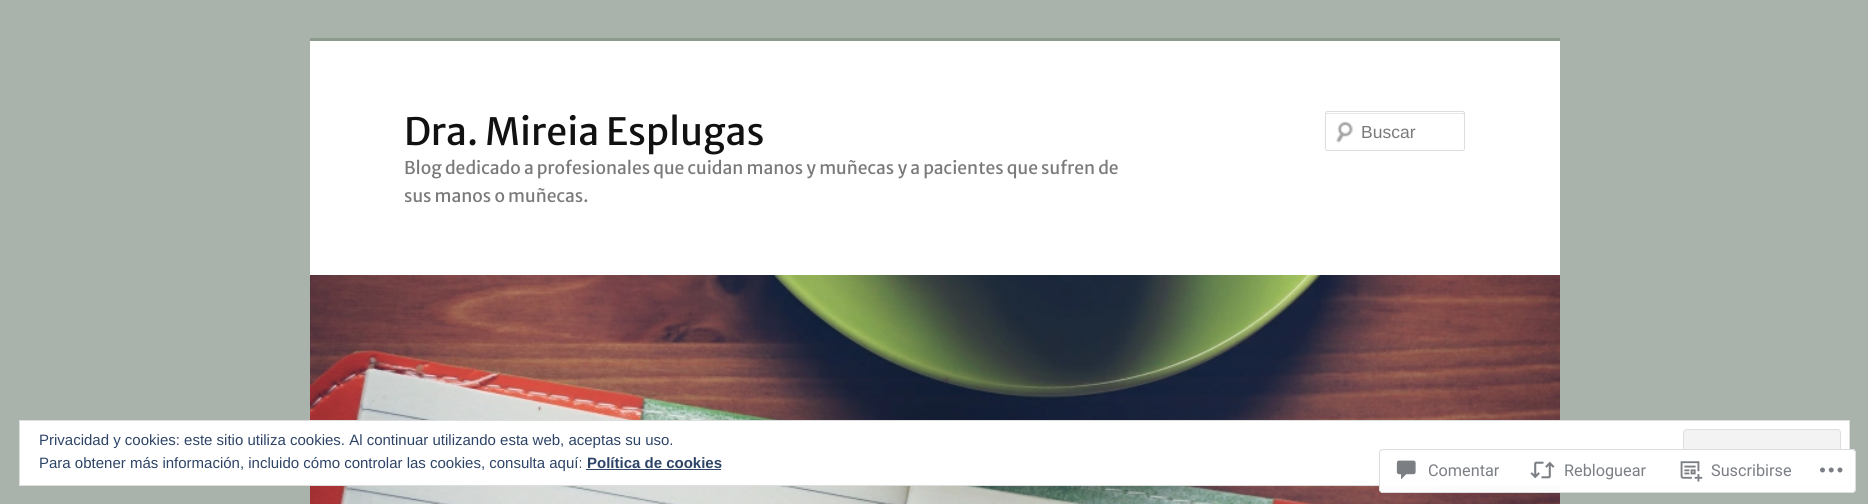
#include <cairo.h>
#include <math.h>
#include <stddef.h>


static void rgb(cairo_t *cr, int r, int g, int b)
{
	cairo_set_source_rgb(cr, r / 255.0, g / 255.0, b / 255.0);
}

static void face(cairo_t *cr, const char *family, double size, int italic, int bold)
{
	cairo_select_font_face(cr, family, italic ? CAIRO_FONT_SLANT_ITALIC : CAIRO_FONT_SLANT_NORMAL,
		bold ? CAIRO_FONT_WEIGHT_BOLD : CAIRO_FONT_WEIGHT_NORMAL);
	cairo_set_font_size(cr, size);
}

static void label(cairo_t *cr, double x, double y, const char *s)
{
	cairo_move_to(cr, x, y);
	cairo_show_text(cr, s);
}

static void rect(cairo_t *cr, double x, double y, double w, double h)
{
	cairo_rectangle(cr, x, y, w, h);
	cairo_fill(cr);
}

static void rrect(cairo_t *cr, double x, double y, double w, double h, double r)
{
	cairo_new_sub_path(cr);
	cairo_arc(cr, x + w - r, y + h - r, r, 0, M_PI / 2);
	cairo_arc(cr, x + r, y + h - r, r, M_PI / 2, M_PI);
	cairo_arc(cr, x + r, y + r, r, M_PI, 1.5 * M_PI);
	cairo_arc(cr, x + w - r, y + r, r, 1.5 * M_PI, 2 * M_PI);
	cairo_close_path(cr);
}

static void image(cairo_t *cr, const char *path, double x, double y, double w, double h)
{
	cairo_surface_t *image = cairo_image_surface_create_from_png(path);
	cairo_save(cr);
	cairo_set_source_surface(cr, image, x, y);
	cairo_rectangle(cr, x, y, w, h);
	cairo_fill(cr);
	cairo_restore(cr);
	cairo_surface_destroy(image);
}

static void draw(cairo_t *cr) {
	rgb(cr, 170, 179, 171);
	cairo_paint(cr);
	rgb(cr, 255, 255, 255);
	rect(cr, 310, 41, 1250, 234);
	rgb(cr, 141, 154, 142);
	rect(cr, 310, 38, 1250, 3);
	face(cr, "Merriweather Sans", 37.5, 0, 0);
	rgb(cr, 17, 17, 17);
	label(cr, 404, 145, "Dra. Mireia Esplugas");
	face(cr, "Merriweather Sans", 17.5, 0, 0);
	rgb(cr, 122, 122, 122);
	label(cr, 404, 174, "Blog dedicado a profesionales que cuidan manos y muñecas y a pacientes que sufren de");
	label(cr, 404, 202, "sus manos o muñecas.");
	image(cr, "image0.png", 1336, 121, 17, 22);
	rgb(cr, 230, 230, 230);
	cairo_new_path(cr);
	cairo_move_to(cr, 1328, 114);
	cairo_line_to(cr, 1462, 114);
	cairo_curve_to(cr, 1463, 114, 1464, 114, 1464, 115);
	cairo_curve_to(cr, 1464, 114, 1464, 113, 1463, 113);
	cairo_line_to(cr, 1327, 113);
	cairo_curve_to(cr, 1326, 113, 1326, 114, 1326, 115);
	cairo_curve_to(cr, 1326, 114, 1327, 114, 1328, 114);
	cairo_close_path(cr);
	cairo_fill(cr);
	rrect(cr, 1325.5, 111.5, 139, 39, 2);
	rgb(cr, 221, 221, 221);
	cairo_set_line_width(cr, 1);
	cairo_stroke(cr);
	face(cr, "Liberation Sans", 17.5, 0, 0);
	rgb(cr, 122, 122, 122);
	label(cr, 1361, 138, "Buscar");
	image(cr, "image1.png", 310, 275, 1250, 229);
	rgb(cr, 255, 255, 255);
	cairo_rectangle(cr, 19.5, 420.5, 1830, 65);
	cairo_fill_preserve(cr);
	rgb(cr, 222, 222, 222);
	cairo_stroke(cr);
	face(cr, "Liberation Sans", 15, 0, 0);
	rgb(cr, 46, 68, 103);
	label(cr, 39, 445, "Privacidad y cookies: este sitio utiliza cookies. Al continuar utilizando esta web, aceptas su uso.");
	rgb(cr, 243, 243, 243);
	rrect(cr, 1683.5, 429.5, 157, 48, 3.5);
	cairo_fill_preserve(cr);
	rgb(cr, 222, 222, 222);
	cairo_stroke(cr);
	rgb(cr, 46, 68, 103);
	label(cr, 39, 468, "Para obtener más información, incluido cómo controlar las cookies, consulta aquí:");
	face(cr, "Liberation Sans", 15, 0, 1);
	label(cr, 587, 468, "Política de cookies");
	rect(cr, 586, 469, 135, 1);
	cairo_set_source_rgba(cr, 1, 1, 1, 0.98);
	rrect(cr, 1379, 449, 477, 44, 4);
	cairo_fill(cr);
	rrect(cr, 1379.5, 449.5, 476, 43, 3.5);
	cairo_set_source_rgba(cr, 0.863, 0.863, 0.871, 0.98);
	cairo_stroke(cr);
	image(cr, "image2.png", 1396, 460, 20, 20);
	face(cr, "Roboto", 16.25, 0, 0);
	rgb(cr, 123, 127, 133);
	label(cr, 1428, 476, "Comentar");
	image(cr, "image3.png", 1530, 461, 25, 18);
	label(cr, 1564, 476, "Rebloguear");
	image(cr, "image4.png", 1680, 461, 23, 21);
	label(cr, 1711, 476, "Suscribirse");
	image(cr, "image5.png", 1820, 467, 23, 6);
}

int main(void) {
	cairo_surface_t *surface = cairo_image_surface_create(CAIRO_FORMAT_RGB24, 1868, 504);
	cairo_t *cr = cairo_create(surface);
	cairo_font_options_t *options = cairo_font_options_create();
	cairo_font_options_set_hint_metrics(options, CAIRO_HINT_METRICS_OFF);
	cairo_font_options_set_hint_style(options, CAIRO_HINT_STYLE_NONE);
	cairo_set_font_options(cr, options);
	cairo_set_miter_limit(cr, 4);
	draw(cr);
	cairo_surface_write_to_png(surface, "render.png");
	cairo_font_options_destroy(options);
	cairo_destroy(cr);
	cairo_surface_destroy(surface);
	return 0;
}
